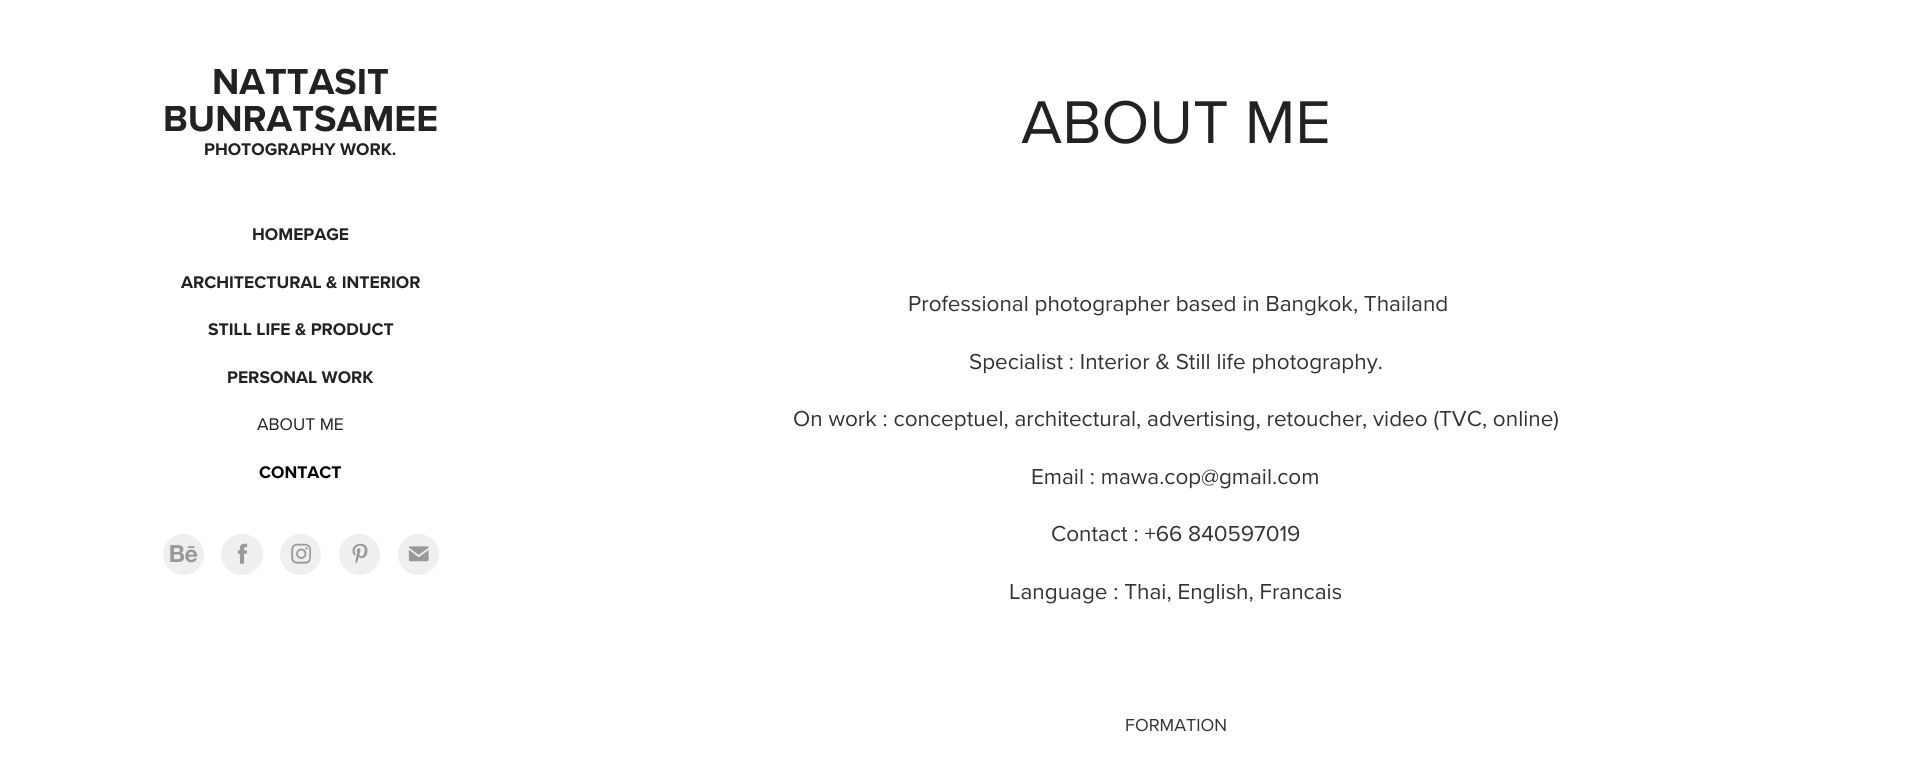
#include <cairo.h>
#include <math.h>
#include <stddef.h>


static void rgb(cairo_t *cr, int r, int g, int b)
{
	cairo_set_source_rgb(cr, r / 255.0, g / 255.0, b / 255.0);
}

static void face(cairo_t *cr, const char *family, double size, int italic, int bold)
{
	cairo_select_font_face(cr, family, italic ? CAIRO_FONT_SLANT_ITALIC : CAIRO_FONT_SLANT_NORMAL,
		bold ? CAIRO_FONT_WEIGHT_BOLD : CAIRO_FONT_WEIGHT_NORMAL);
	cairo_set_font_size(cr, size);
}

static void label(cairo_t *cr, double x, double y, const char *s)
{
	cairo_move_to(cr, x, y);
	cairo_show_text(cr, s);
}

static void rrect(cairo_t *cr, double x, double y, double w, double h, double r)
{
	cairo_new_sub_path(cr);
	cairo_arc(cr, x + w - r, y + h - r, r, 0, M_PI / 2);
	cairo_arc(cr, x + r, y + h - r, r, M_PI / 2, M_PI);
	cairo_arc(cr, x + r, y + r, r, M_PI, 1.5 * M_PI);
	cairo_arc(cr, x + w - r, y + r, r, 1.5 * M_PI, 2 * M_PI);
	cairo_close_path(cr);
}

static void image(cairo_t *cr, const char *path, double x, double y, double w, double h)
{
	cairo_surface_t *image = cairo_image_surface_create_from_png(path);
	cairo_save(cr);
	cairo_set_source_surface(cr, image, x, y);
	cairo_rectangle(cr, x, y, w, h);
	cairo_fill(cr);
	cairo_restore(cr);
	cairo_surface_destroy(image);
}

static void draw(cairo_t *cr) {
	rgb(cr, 255, 255, 255);
	cairo_paint(cr);
	face(cr, "Proxima Nova", 37.5, 0, 1);
	rgb(cr, 34, 34, 34);
	label(cr, 212, 94, "NATTASIT");
	label(cr, 163, 131, "BUNRATSAMEE");
	face(cr, "Proxima Nova", 17.5, 0, 1);
	label(cr, 204, 155, "PHOTOGRAPHY WORK.");
	label(cr, 252, 240, "HOMEPAGE");
	label(cr, 181, 288, "ARCHITECTURAL & INTERIOR");
	label(cr, 208, 335, "STILL LIFE & PRODUCT");
	label(cr, 227, 383, "PERSONAL WORK");
	face(cr, "Proxima Nova", 17.5, 0, 0);
	label(cr, 257, 430, "ABOUT ME");
	face(cr, "Proxima Nova", 17.5, 0, 1);
	rgb(cr, 0, 0, 0);
	label(cr, 259, 478, "CONTACT");
	rgb(cr, 239, 239, 239);
	cairo_new_path(cr);
	cairo_arc(cr, 183.5, 554.5, 20.5, 0, 2 * M_PI);
	cairo_fill(cr);
	image(cr, "image0.png", 170, 545, 28, 18);
	rrect(cr, 221, 534, 42, 41, 20.5);
	cairo_fill(cr);
	image(cr, "image1.png", 237, 543, 11, 21);
	cairo_arc(cr, 300.5, 554.5, 20.5, 0, 2 * M_PI);
	cairo_fill(cr);
	image(cr, "image2.png", 291, 543, 20, 21);
	cairo_arc(cr, 359.5, 554.5, 20.5, 0, 2 * M_PI);
	cairo_fill(cr);
	image(cr, "image3.png", 352, 543, 16, 21);
	cairo_arc(cr, 418.5, 554.5, 20.5, 0, 2 * M_PI);
	cairo_fill(cr);
	image(cr, "image4.png", 408, 546, 21, 16);
	face(cr, "Proxima Nova", 62.5, 0, 0);
	rgb(cr, 34, 34, 34);
	label(cr, 1021, 143, "ABOUT ME");
	face(cr, "Proxima Nova", 22.5, 0, 0);
	rgb(cr, 51, 51, 51);
	label(cr, 908, 311, "Professional photographer based in Bangkok, Thailand");
	label(cr, 969, 369, "Specialist : Interior & Still life photography.");
	label(cr, 793, 426, "On work : conceptuel, architectural, advertising, retoucher, video (TVC, online)");
	label(cr, 1031, 484, "Email : mawa.cop@gmail.com");
	label(cr, 1051, 541, "Contact : +66 840597019");
	label(cr, 1009, 599, "Language : Thai, English, Francais");
	face(cr, "Proxima Nova", 18, 0, 0);
	label(cr, 1125, 731, "FORMATION");
}

int main(void) {
	cairo_surface_t *surface = cairo_image_surface_create(CAIRO_FORMAT_RGB24, 1913, 770);
	cairo_t *cr = cairo_create(surface);
	cairo_font_options_t *options = cairo_font_options_create();
	cairo_font_options_set_hint_metrics(options, CAIRO_HINT_METRICS_OFF);
	cairo_font_options_set_hint_style(options, CAIRO_HINT_STYLE_NONE);
	cairo_set_font_options(cr, options);
	cairo_set_miter_limit(cr, 4);
	draw(cr);
	cairo_surface_write_to_png(surface, "render.png");
	cairo_font_options_destroy(options);
	cairo_destroy(cr);
	cairo_surface_destroy(surface);
	return 0;
}
